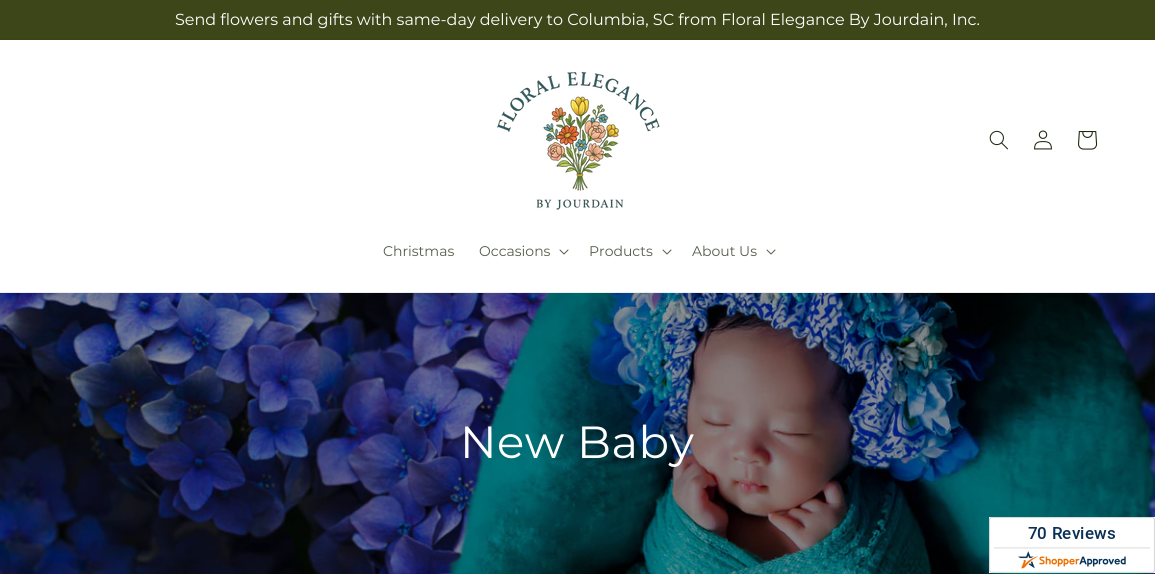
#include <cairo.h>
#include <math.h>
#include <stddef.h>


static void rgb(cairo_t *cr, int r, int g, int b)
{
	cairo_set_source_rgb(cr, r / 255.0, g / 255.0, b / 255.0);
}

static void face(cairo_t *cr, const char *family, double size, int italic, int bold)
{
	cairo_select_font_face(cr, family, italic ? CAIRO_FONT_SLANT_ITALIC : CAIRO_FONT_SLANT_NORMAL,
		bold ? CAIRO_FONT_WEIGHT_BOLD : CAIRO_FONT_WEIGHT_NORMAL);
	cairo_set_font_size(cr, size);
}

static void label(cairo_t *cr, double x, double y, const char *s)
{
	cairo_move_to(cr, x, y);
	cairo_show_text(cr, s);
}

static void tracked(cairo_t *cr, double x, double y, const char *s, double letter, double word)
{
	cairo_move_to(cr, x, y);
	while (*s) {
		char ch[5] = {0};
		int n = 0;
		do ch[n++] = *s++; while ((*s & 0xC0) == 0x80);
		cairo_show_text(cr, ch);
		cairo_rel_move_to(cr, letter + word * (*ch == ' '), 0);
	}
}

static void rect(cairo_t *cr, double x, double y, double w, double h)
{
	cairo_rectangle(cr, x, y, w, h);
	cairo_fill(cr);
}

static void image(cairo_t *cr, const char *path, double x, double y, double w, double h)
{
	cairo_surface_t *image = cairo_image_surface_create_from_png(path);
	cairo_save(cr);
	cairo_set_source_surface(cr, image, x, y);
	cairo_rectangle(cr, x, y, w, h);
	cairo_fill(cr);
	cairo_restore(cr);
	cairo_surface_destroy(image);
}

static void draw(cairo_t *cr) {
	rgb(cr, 255, 255, 255);
	cairo_paint(cr);
	rgb(cr, 60, 70, 24);
	rect(cr, 0, 0, 1155, 39);
	rgb(cr, 58, 68, 23);
	rect(cr, 0, 39, 1155, 1);
	face(cr, "Montserrat", 16, 0, 0);
	rgb(cr, 255, 255, 255);
	label(cr, 175, 25, "Send flowers and gifts with same-day delivery to Columbia, SC from Floral Elegance By Jourdain, Inc.");
	rgb(cr, 237, 238, 236);
	rect(cr, 0, 292, 1155, 1);
	image(cr, "image0.png", 497, 71, 163, 139);
	image(cr, "image1.png", 989, 130, 19, 20);
	image(cr, "image2.png", 1034, 130, 18, 20);
	image(cr, "image3.png", 1078, 131, 20, 19);
	face(cr, "Montserrat", 14, 0, 0);
	rgb(cr, 86, 94, 75);
	label(cr, 383, 256, "Christmas");
	label(cr, 479, 256, "Occasions");
	image(cr, "image4.png", 559, 249, 10, 6);
	label(cr, 589, 256, "Products");
	image(cr, "image4.png", 662, 249, 10, 6);
	label(cr, 692, 256, "About Us");
	image(cr, "image4.png", 766, 249, 10, 6);
	image(cr, "image5.png", 0, 293, 1155, 281);
	face(cr, "Montserrat", 45, 0, 0);
	rgb(cr, 255, 255, 255);
	tracked(cr, 460, 458, "New Baby", 0.5, 0);
	image(cr, "image6.png", 989, 517, 166, 56);
}

int main(void) {
	cairo_surface_t *surface = cairo_image_surface_create(CAIRO_FORMAT_RGB24, 1155, 574);
	cairo_t *cr = cairo_create(surface);
	cairo_font_options_t *options = cairo_font_options_create();
	cairo_font_options_set_hint_metrics(options, CAIRO_HINT_METRICS_OFF);
	cairo_font_options_set_hint_style(options, CAIRO_HINT_STYLE_NONE);
	cairo_set_font_options(cr, options);
	cairo_set_miter_limit(cr, 4);
	draw(cr);
	cairo_surface_write_to_png(surface, "render.png");
	cairo_font_options_destroy(options);
	cairo_destroy(cr);
	cairo_surface_destroy(surface);
	return 0;
}
